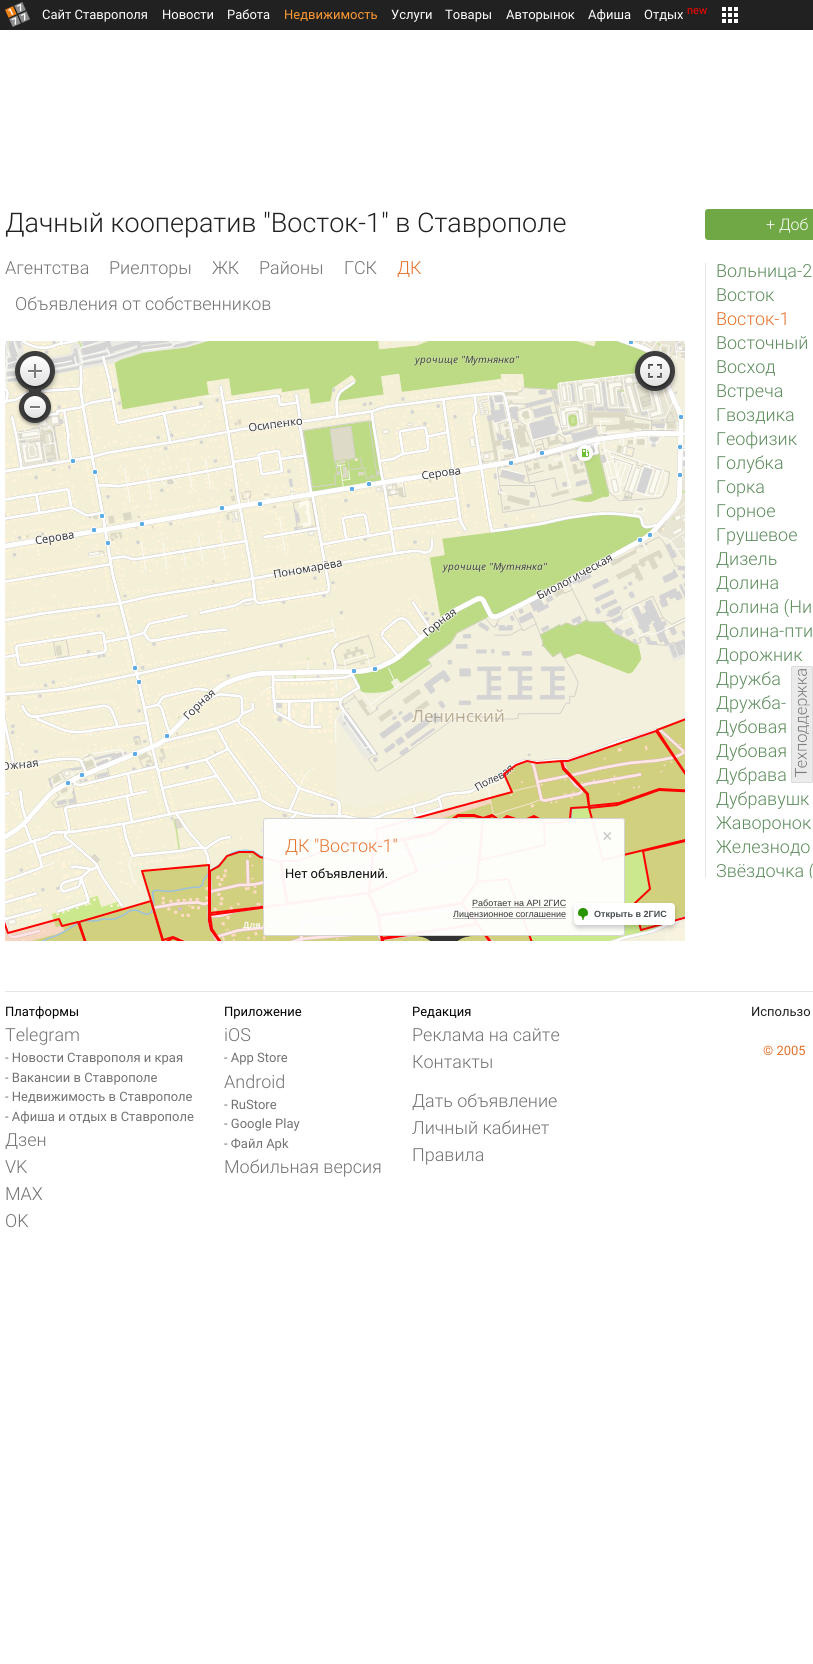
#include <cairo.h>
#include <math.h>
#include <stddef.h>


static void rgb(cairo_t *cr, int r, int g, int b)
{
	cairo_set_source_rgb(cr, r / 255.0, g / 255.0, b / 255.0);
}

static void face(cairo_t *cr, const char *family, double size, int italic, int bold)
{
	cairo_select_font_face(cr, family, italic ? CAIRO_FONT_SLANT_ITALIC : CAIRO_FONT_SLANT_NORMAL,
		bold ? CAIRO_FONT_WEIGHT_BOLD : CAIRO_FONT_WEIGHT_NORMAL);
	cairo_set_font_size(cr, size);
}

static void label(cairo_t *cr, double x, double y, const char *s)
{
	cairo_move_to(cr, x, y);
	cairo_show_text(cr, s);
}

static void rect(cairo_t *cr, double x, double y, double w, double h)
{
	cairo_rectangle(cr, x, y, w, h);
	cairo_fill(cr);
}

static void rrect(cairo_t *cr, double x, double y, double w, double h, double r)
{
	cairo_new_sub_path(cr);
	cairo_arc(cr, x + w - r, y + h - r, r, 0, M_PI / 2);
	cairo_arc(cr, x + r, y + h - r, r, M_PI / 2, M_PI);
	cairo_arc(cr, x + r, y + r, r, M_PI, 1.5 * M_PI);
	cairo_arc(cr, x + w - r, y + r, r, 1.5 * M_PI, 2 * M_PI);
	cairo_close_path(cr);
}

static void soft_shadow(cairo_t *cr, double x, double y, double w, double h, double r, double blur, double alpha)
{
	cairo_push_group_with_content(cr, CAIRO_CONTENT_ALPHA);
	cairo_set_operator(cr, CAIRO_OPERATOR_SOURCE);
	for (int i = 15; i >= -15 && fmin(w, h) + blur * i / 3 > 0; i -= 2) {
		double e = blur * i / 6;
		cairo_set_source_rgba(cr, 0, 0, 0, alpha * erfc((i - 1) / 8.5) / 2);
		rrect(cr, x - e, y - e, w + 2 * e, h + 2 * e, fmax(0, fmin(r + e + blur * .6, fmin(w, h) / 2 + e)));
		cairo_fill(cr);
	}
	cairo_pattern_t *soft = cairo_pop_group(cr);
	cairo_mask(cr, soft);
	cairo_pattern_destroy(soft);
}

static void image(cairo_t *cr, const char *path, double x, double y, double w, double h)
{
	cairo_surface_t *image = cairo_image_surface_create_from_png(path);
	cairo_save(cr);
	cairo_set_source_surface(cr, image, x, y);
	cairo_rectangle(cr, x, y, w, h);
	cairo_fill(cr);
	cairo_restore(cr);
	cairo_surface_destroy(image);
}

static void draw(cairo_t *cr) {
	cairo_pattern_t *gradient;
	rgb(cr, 255, 255, 255);
	cairo_paint(cr);
	rgb(cr, 33, 33, 33);
	rect(cr, 0, 0, 813, 30);
	image(cr, "image0.png", 5, 2, 25, 25);
	face(cr, "Roboto", 13, 0, 0);
	rgb(cr, 255, 255, 255);
	label(cr, 42, 19, "Сайт Ставрополя");
	label(cr, 162, 19, "Новости");
	label(cr, 227, 19, "Работа");
	rgb(cr, 255, 153, 51);
	label(cr, 284, 19, "Недвижимость");
	rgb(cr, 255, 255, 255);
	label(cr, 391, 19, "Услуги");
	label(cr, 445, 19, "Товары");
	label(cr, 506, 19, "Авторынок");
	label(cr, 588, 19, "Афиша");
	label(cr, 644, 19, "Отдых");
	face(cr, "Roboto", 11, 0, 0);
	rgb(cr, 255, 0, 0);
	label(cr, 687, 14, "new");
	image(cr, "image1.png", 722, 7, 16, 16);
	face(cr, "Roboto Light", 27, 0, 0);
	rgb(cr, 33, 33, 33);
	label(cr, 5, 232, "Дачный кооператив \"Восток-1\" в Ставрополе");
	rgb(cr, 111, 168, 68);
	rrect(cr, 705, 209, 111, 31, 3);
	cairo_fill(cr);
	face(cr, "Roboto Light", 16, 0, 0);
	rgb(cr, 255, 255, 255);
	label(cr, 766, 230, "+ Доб");
	face(cr, "Roboto Light", 18, 0, 0);
	rgb(cr, 114, 114, 114);
	label(cr, 5, 274, "Агентства");
	label(cr, 109, 274, "Риелторы");
	label(cr, 212, 274, "ЖК");
	label(cr, 259, 274, "Районы");
	label(cr, 344, 274, "ГСК");
	rgb(cr, 228, 113, 41);
	label(cr, 397, 274, "ДК");
	rgb(cr, 114, 114, 114);
	label(cr, 15, 310, "Объявления от собственников");
	rgb(cr, 247, 243, 223);
	rect(cr, 665, 928, 20, 13);
	image(cr, "image2.png", 5, 341, 148, 41);
	image(cr, "image3.png", 153, 341, 256, 41);
	image(cr, "image4.png", 409, 341, 256, 41);
	image(cr, "image5.png", 665, 341, 20, 41);
	image(cr, "image6.png", 5, 382, 148, 256);
	image(cr, "image7.png", 153, 382, 256, 256);
	image(cr, "image8.png", 409, 382, 256, 256);
	image(cr, "image9.png", 665, 382, 20, 256);
	image(cr, "image10.png", 5, 638, 148, 256);
	image(cr, "image11.png", 153, 638, 256, 256);
	image(cr, "image12.png", 409, 638, 256, 256);
	image(cr, "image13.png", 665, 638, 20, 256);
	image(cr, "image14.png", 5, 894, 148, 47);
	image(cr, "image15.png", 153, 894, 256, 47);
	image(cr, "image16.png", 409, 894, 256, 47);
	image(cr, "image17.png", 665, 894, 20, 34);
	image(cr, "image18.png", 5, 718, 680, 223);
	cairo_set_source_rgba(cr, 1, 1, 1, 0.95);
	rrect(cr, 263, 818, 362, 118, 3);
	cairo_fill(cr);
	rrect(cr, 263.5, 818.5, 361, 117, 2.5);
	cairo_set_source_rgba(cr, 0.824, 0.824, 0.824, 0.95);
	cairo_set_line_width(cr, 1);
	cairo_stroke(cr);
	face(cr, "Liberation Sans", 18, 0, 0);
	rgb(cr, 195, 195, 195);
	label(cr, 602, 842, "×");
	face(cr, "Roboto Light", 18, 0, 0);
	rgb(cr, 229, 120, 51);
	label(cr, 285, 852, "ДК \"Восток-1\"");
	face(cr, "Roboto", 13, 0, 0);
	rgb(cr, 13, 13, 13);
	label(cr, 285, 878, "Нет объявлений.");
	image(cr, "image19.png", 417, 936, 54, 5);
	cairo_save(cr);
	cairo_rectangle(cr, 415, 936, 58, 5);
	cairo_clip(cr);
	cairo_set_source_rgba(cr, 0.196, 0.196, 0.196, 0.9);
	cairo_new_path(cr);
	cairo_move_to(cr, 415, 936);
	cairo_curve_to(cr, 428, 936, 443, 943, 443, 980);
	cairo_line_to(cr, 445, 980);
	cairo_curve_to(cr, 445, 943, 460, 936, 473, 936);
	cairo_close_path(cr);
	cairo_fill(cr);
	cairo_restore(cr);
	rgb(cr, 0, 0, 0);
	soft_shadow(cr, 15, 354, 40, 40, 20, 2.5, 0.3);
	soft_shadow(cr, 27, 388, 16, 6, 0, 1.5, 0.3);
	rgb(cr, 61, 61, 61);
	cairo_arc(cr, 35, 371, 20, 0, 2 * M_PI);
	cairo_fill(cr);
	rgb(cr, 0, 0, 0);
	soft_shadow(cr, 20, 358, 30, 30, 15, 1, 0.4);
	gradient = cairo_pattern_create_linear(35, 356, 35, 386);
	cairo_pattern_add_color_stop_rgba(gradient, 0, 1, 1, 1, 1);
	cairo_pattern_add_color_stop_rgba(gradient, 1, 0.878, 0.878, 0.878, 1);
	cairo_set_source(cr, gradient);
	cairo_pattern_destroy(gradient);
	cairo_arc(cr, 35, 371, 15, 0, 2 * M_PI);
	cairo_fill(cr);
	rgb(cr, 255, 255, 255);
	cairo_new_path(cr);
	cairo_move_to(cr, 34, 378);
	cairo_line_to(cr, 34, 379);
	cairo_line_to(cr, 36, 379);
	cairo_line_to(cr, 36, 378);
	cairo_close_path(cr);
	cairo_fill(cr);
	rect(cr, 28, 372, 14, 1);
	rgb(cr, 122, 122, 122);
	rect(cr, 28, 370, 14, 2);
	rect(cr, 34, 364, 2, 14);
	rgb(cr, 0, 0, 0);
	soft_shadow(cr, 19, 393, 32, 32, 16, 1.5, 0.3);
	rgb(cr, 61, 61, 61);
	cairo_arc(cr, 35, 407, 16, 0, 2 * M_PI);
	cairo_fill(cr);
	rect(cr, 29, 390, 12, 2);
	rgb(cr, 0, 0, 0);
	soft_shadow(cr, 24, 398, 22, 22, 11, 1, 0.4);
	gradient = cairo_pattern_create_linear(35, 396, 35, 418);
	cairo_pattern_add_color_stop_rgba(gradient, 0, 1, 1, 1, 1);
	cairo_pattern_add_color_stop_rgba(gradient, 1, 0.878, 0.878, 0.878, 1);
	cairo_set_source(cr, gradient);
	cairo_pattern_destroy(gradient);
	cairo_arc(cr, 35, 407, 11, 0, 2 * M_PI);
	cairo_fill(cr);
	rgb(cr, 255, 255, 255);
	rect(cr, 30, 408, 10, 1);
	rgb(cr, 122, 122, 122);
	rect(cr, 30, 406, 10, 2);
	rgb(cr, 0, 0, 0);
	soft_shadow(cr, 635, 354, 40, 40, 20, 2.5, 0.3);
	rgb(cr, 61, 61, 61);
	cairo_arc(cr, 655, 371, 20, 0, 2 * M_PI);
	cairo_fill(cr);
	rgb(cr, 0, 0, 0);
	soft_shadow(cr, 640, 358, 30, 30, 15, 1, 0.4);
	gradient = cairo_pattern_create_linear(655, 356, 655, 386);
	cairo_pattern_add_color_stop_rgba(gradient, 0, 1, 1, 1, 1);
	cairo_pattern_add_color_stop_rgba(gradient, 1, 0.878, 0.878, 0.878, 1);
	cairo_set_source(cr, gradient);
	cairo_pattern_destroy(gradient);
	cairo_arc(cr, 655, 371, 15, 0, 2 * M_PI);
	cairo_fill(cr);
	image(cr, "image20.png", 648, 364, 14, 15);
	face(cr, "Liberation Sans", 9, 0, 0);
	rgb(cr, 51, 51, 51);
	label(cr, 472, 906, "Работает на API 2ГИС");
	cairo_set_source_rgba(cr, 0.031, 0.031, 0.031, 0.3);
	rect(cr, 472, 907, 94, 1);
	rect(cr, 453, 918, 113, 1);
	rgb(cr, 51, 51, 51);
	label(cr, 453, 917, "Лицензионное соглашение");
	face(cr, "Liberation Sans", 9, 0, 1);
	rgb(cr, 250, 249, 242);
	label(cr, 243, 928, "Для к");
	rgb(cr, 0, 0, 0);
	soft_shadow(cr, 574, 906, 101, 22, 4, 2.5, 0.2);
	rgb(cr, 255, 255, 255);
	rrect(cr, 574, 903, 101, 22, 4);
	cairo_fill(cr);
	image(cr, "image21.png", 578, 908, 10, 12);
	rgb(cr, 69, 76, 79);
	label(cr, 594, 917, "Открыть в 2ГИС");
	rgb(cr, 230, 230, 230);
	rect(cr, 705, 263, 1, 615);
	face(cr, "Roboto Light", 18, 0, 0);
	rgb(cr, 93, 140, 93);
	label(cr, 716, 277, "Вольница-2");
	label(cr, 716, 301, "Восток");
	rgb(cr, 228, 113, 41);
	label(cr, 716, 325, "Восток-1");
	rgb(cr, 93, 140, 93);
	label(cr, 716, 349, "Восточный");
	label(cr, 716, 373, "Восход");
	label(cr, 716, 397, "Встреча");
	label(cr, 716, 421, "Гвоздика");
	label(cr, 716, 445, "Геофизик");
	label(cr, 716, 469, "Голубка");
	label(cr, 716, 493, "Горка");
	label(cr, 716, 517, "Горное");
	label(cr, 716, 541, "Грушевое");
	label(cr, 716, 565, "Дизель");
	label(cr, 716, 589, "Долина");
	label(cr, 716, 613, "Долина (Ни");
	label(cr, 716, 637, "Долина-пти");
	label(cr, 716, 661, "Дорожник");
	label(cr, 716, 685, "Дружба");
	label(cr, 716, 709, "Дружба-");
	label(cr, 716, 733, "Дубовая");
	label(cr, 716, 757, "Дубовая");
	label(cr, 716, 781, "Дубрава");
	label(cr, 716, 805, "Дубравушк");
	label(cr, 716, 829, "Жаворонок");
	label(cr, 716, 853, "Железнодо");
	cairo_save(cr);
	cairo_rectangle(cr, 706, 263, 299, 615);
	cairo_clip(cr);
	label(cr, 716, 877, "Звёздочка (");
	cairo_restore(cr);
	cairo_set_source_rgba(cr, 0.918, 0.918, 0.918, 0.9);
	rrect(cr, 791, 666, 22, 117, 2);
	cairo_fill(cr);
	rrect(cr, 791.5, 666.5, 21, 116, 1.5);
	cairo_set_source_rgba(cr, 0.855, 0.855, 0.855, 0.9);
	cairo_stroke(cr);
	image(cr, "image22.png", 792, 669, 19, 109);
	rgb(cr, 230, 230, 230);
	rect(cr, 5, 991, 808, 1);
	face(cr, "Roboto", 13, 0, 0);
	rgb(cr, 0, 0, 0);
	label(cr, 5, 1016, "Платформы");
	face(cr, "Roboto Light", 18, 0, 0);
	rgb(cr, 114, 114, 114);
	label(cr, 5, 1041, "Telegram");
	face(cr, "Roboto", 13, 0, 0);
	label(cr, 5, 1062, "- Новости Ставрополя и края");
	label(cr, 5, 1082, "- Вакансии в Ставрополе");
	label(cr, 5, 1101, "- Недвижимость в Ставрополе");
	label(cr, 5, 1121, "- Афиша и отдых в Ставрополе");
	face(cr, "Roboto Light", 18, 0, 0);
	label(cr, 5, 1146, "Дзен");
	label(cr, 5, 1173, "VK");
	label(cr, 5, 1200, "MAX");
	label(cr, 5, 1227, "OK");
	face(cr, "Roboto", 13, 0, 0);
	rgb(cr, 0, 0, 0);
	label(cr, 224, 1016, "Приложение");
	face(cr, "Roboto Light", 18, 0, 0);
	rgb(cr, 114, 114, 114);
	label(cr, 224, 1041, "iOS");
	face(cr, "Roboto", 13, 0, 0);
	label(cr, 224, 1062, "- App Store");
	face(cr, "Roboto Light", 18, 0, 0);
	label(cr, 224, 1088, "Android");
	face(cr, "Roboto", 13, 0, 0);
	label(cr, 224, 1109, "- RuStore");
	label(cr, 224, 1128, "- Google Play");
	label(cr, 224, 1148, "- Файл Apk");
	face(cr, "Roboto Light", 18, 0, 0);
	label(cr, 224, 1173, "Мобильная версия");
	face(cr, "Roboto", 13, 0, 0);
	rgb(cr, 0, 0, 0);
	label(cr, 412, 1016, "Редакция");
	face(cr, "Roboto Light", 18, 0, 0);
	rgb(cr, 114, 114, 114);
	label(cr, 412, 1041, "Реклама на сайте");
	label(cr, 412, 1068, "Контакты");
	label(cr, 412, 1107, "Дать объявление");
	label(cr, 412, 1134, "Личный кабинет");
	label(cr, 412, 1161, "Правила");
	face(cr, "Roboto", 13, 0, 0);
	rgb(cr, 33, 33, 33);
	label(cr, 751, 1016, "Использо");
	rgb(cr, 228, 113, 41);
	label(cr, 763, 1055, "© 2005");
}

int main(void) {
	cairo_surface_t *surface = cairo_image_surface_create(CAIRO_FORMAT_RGB24, 813, 1664);
	cairo_t *cr = cairo_create(surface);
	cairo_font_options_t *options = cairo_font_options_create();
	cairo_font_options_set_hint_metrics(options, CAIRO_HINT_METRICS_OFF);
	cairo_font_options_set_hint_style(options, CAIRO_HINT_STYLE_NONE);
	cairo_set_font_options(cr, options);
	cairo_set_miter_limit(cr, 4);
	draw(cr);
	cairo_surface_write_to_png(surface, "render.png");
	cairo_font_options_destroy(options);
	cairo_destroy(cr);
	cairo_surface_destroy(surface);
	return 0;
}
